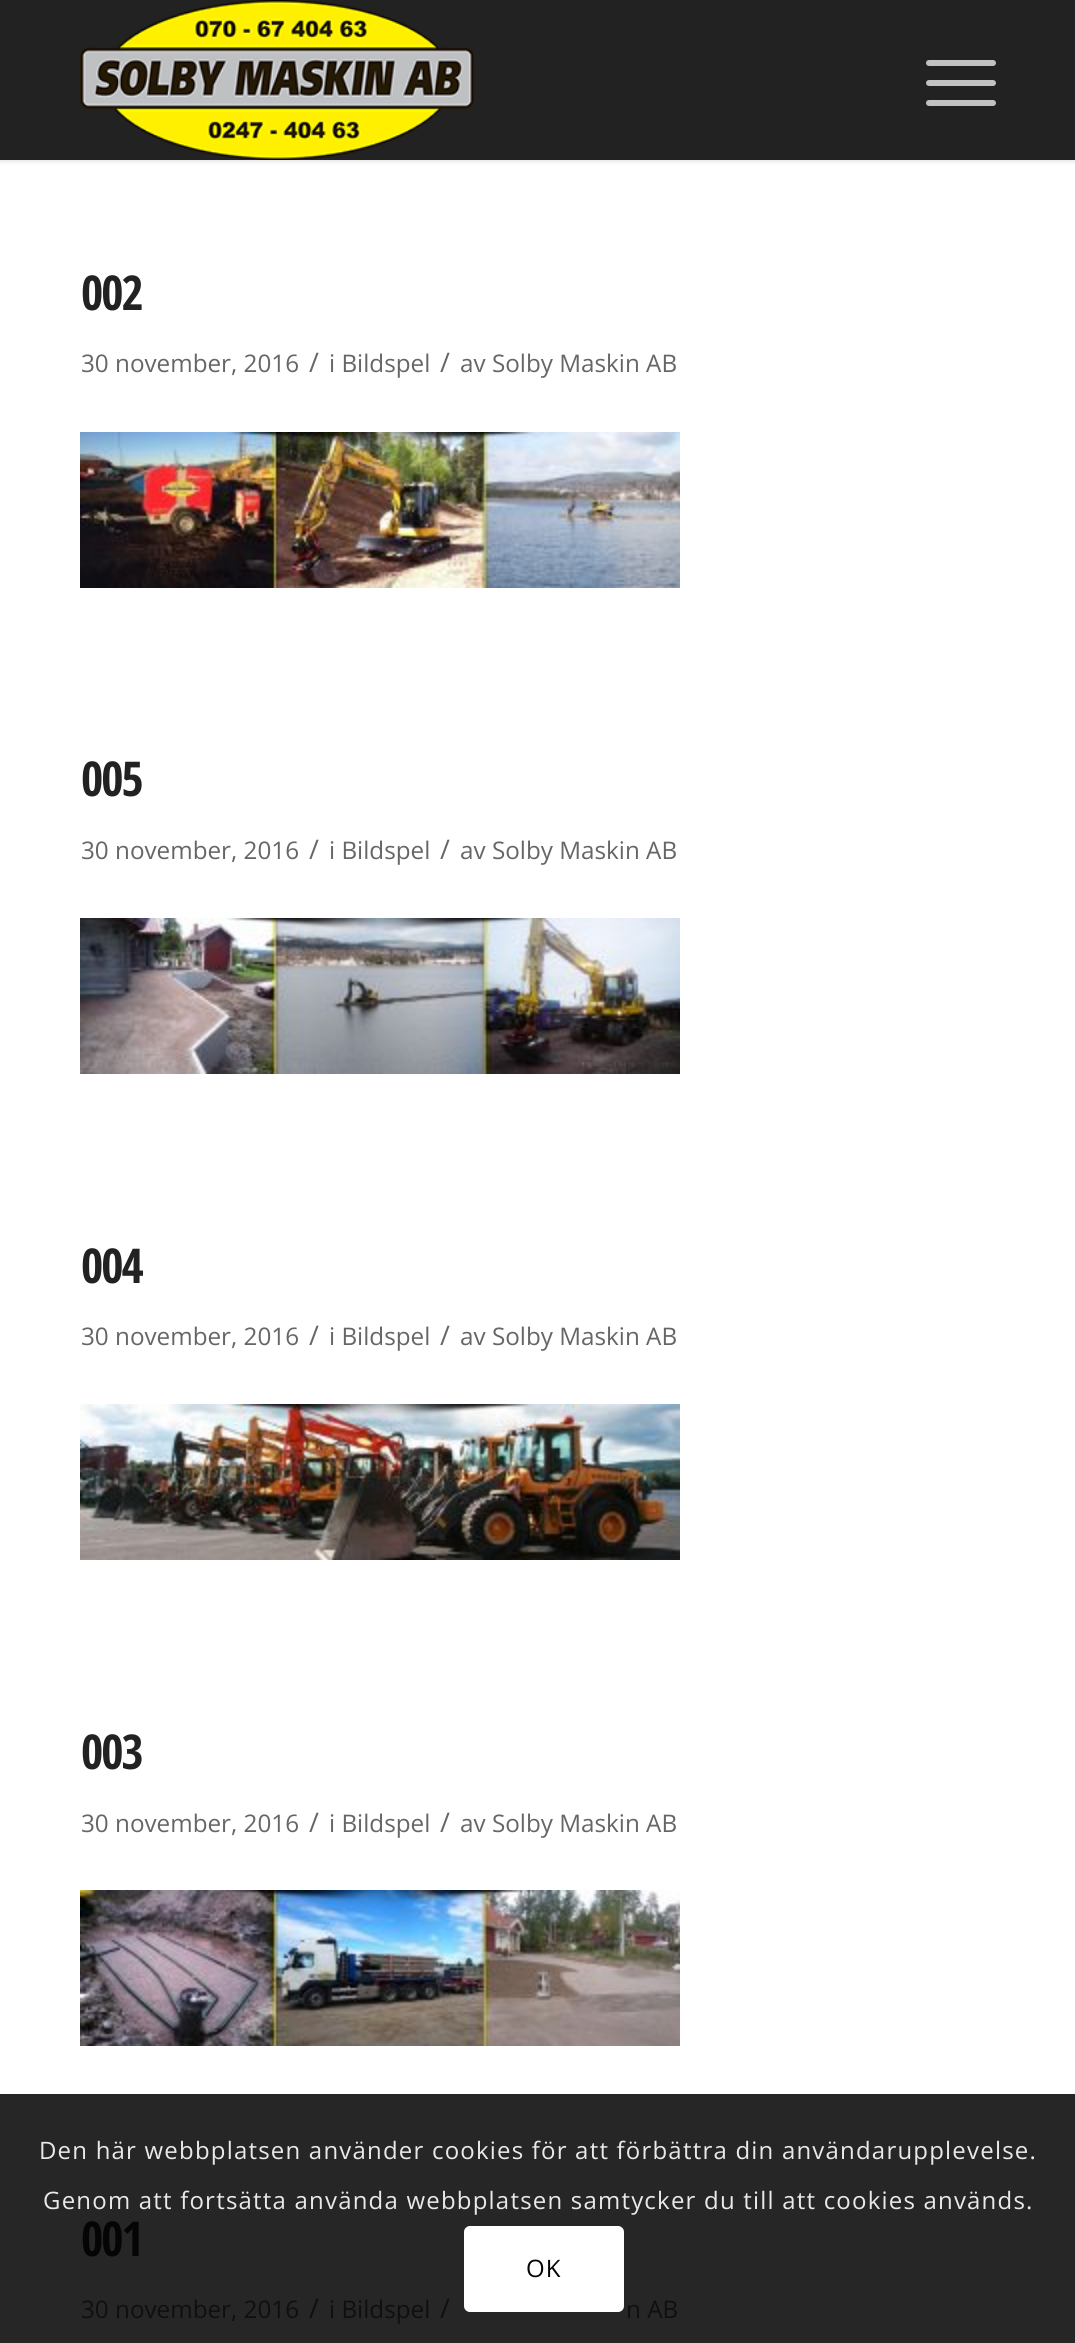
#include <cairo.h>
#include <math.h>
#include <stddef.h>


static void rgb(cairo_t *cr, int r, int g, int b)
{
	cairo_set_source_rgb(cr, r / 255.0, g / 255.0, b / 255.0);
}

static void face(cairo_t *cr, const char *family, double size, int italic, int bold)
{
	cairo_select_font_face(cr, family, italic ? CAIRO_FONT_SLANT_ITALIC : CAIRO_FONT_SLANT_NORMAL,
		bold ? CAIRO_FONT_WEIGHT_BOLD : CAIRO_FONT_WEIGHT_NORMAL);
	cairo_set_font_size(cr, size);
}

static void label(cairo_t *cr, double x, double y, const char *s)
{
	cairo_move_to(cr, x, y);
	cairo_show_text(cr, s);
}

static void tracked(cairo_t *cr, double x, double y, const char *s, double letter, double word)
{
	cairo_move_to(cr, x, y);
	while (*s) {
		char ch[5] = {0};
		int n = 0;
		do ch[n++] = *s++; while ((*s & 0xC0) == 0x80);
		cairo_show_text(cr, ch);
		cairo_rel_move_to(cr, letter + word * (*ch == ' '), 0);
	}
}

static void rect(cairo_t *cr, double x, double y, double w, double h)
{
	cairo_rectangle(cr, x, y, w, h);
	cairo_fill(cr);
}

static void rrect(cairo_t *cr, double x, double y, double w, double h, double r)
{
	cairo_new_sub_path(cr);
	cairo_arc(cr, x + w - r, y + h - r, r, 0, M_PI / 2);
	cairo_arc(cr, x + r, y + h - r, r, M_PI / 2, M_PI);
	cairo_arc(cr, x + r, y + r, r, M_PI, 1.5 * M_PI);
	cairo_arc(cr, x + w - r, y + r, r, 1.5 * M_PI, 2 * M_PI);
	cairo_close_path(cr);
}

static void soft_shadow(cairo_t *cr, double x, double y, double w, double h, double r, double blur, double alpha)
{
	cairo_push_group_with_content(cr, CAIRO_CONTENT_ALPHA);
	cairo_set_operator(cr, CAIRO_OPERATOR_SOURCE);
	for (int i = 15; i >= -15 && fmin(w, h) + blur * i / 3 > 0; i -= 2) {
		double e = blur * i / 6;
		cairo_set_source_rgba(cr, 0, 0, 0, alpha * erfc((i - 1) / 8.5) / 2);
		rrect(cr, x - e, y - e, w + 2 * e, h + 2 * e, fmax(0, fmin(r + e + blur * .6, fmin(w, h) / 2 + e)));
		cairo_fill(cr);
	}
	cairo_pattern_t *soft = cairo_pop_group(cr);
	cairo_mask(cr, soft);
	cairo_pattern_destroy(soft);
}

static void image(cairo_t *cr, const char *path, double x, double y, double w, double h)
{
	cairo_surface_t *image = cairo_image_surface_create_from_png(path);
	cairo_save(cr);
	cairo_set_source_surface(cr, image, x, y);
	cairo_rectangle(cr, x, y, w, h);
	cairo_fill(cr);
	cairo_restore(cr);
	cairo_surface_destroy(image);
}

static void draw(cairo_t *cr) {
	rgb(cr, 255, 255, 255);
	cairo_paint(cr);
	rgb(cr, 0, 0, 0);
	soft_shadow(cr, -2, -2, 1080, 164, 0, 2, 0.1);
	rgb(cr, 34, 34, 34);
	rect(cr, 0, 0, 1075, 160);
	image(cr, "image0.png", 80, 0, 394, 160);
	rgb(cr, 194, 194, 194);
	rrect(cr, 926, 80, 70, 6, 3);
	cairo_fill(cr);
	rrect(cr, 926, 60, 70, 6, 3);
	cairo_fill(cr);
	rrect(cr, 926, 100, 70, 6, 3);
	cairo_fill(cr);
	rgb(cr, 38, 38, 38);
	rect(cr, 0, 2094, 1075, 249);
	face(cr, "Open Sans Condensed", 48, 0, 1);
	rgb(cr, 34, 34, 34);
	tracked(cr, 81, 310, "002", -2, 0);
	face(cr, "Open Sans", 24.25, 0, 0);
	rgb(cr, 102, 102, 102);
	label(cr, 81, 372, "30 november, 2016");
	face(cr, "Open Sans", 27, 0, 0);
	label(cr, 309, 372, "/");
	face(cr, "Open Sans", 24.25, 0, 0);
	label(cr, 329, 372, "i Bildspel");
	face(cr, "Open Sans", 27, 0, 0);
	label(cr, 440, 372, "/");
	face(cr, "Open Sans", 24.25, 0, 0);
	label(cr, 460, 372, "av Solby Maskin AB");
	image(cr, "image1.png", 80, 432, 600, 156);
	face(cr, "Open Sans Condensed", 48, 0, 1);
	rgb(cr, 34, 34, 34);
	tracked(cr, 81, 796, "005", -2, 0);
	face(cr, "Open Sans", 24.25, 0, 0);
	rgb(cr, 102, 102, 102);
	label(cr, 81, 859, "30 november, 2016");
	face(cr, "Open Sans", 27, 0, 0);
	label(cr, 309, 859, "/");
	face(cr, "Open Sans", 24.25, 0, 0);
	label(cr, 329, 859, "i Bildspel");
	face(cr, "Open Sans", 27, 0, 0);
	label(cr, 440, 859, "/");
	face(cr, "Open Sans", 24.25, 0, 0);
	label(cr, 460, 859, "av Solby Maskin AB");
	image(cr, "image2.png", 80, 918, 600, 156);
	face(cr, "Open Sans Condensed", 48, 0, 1);
	rgb(cr, 34, 34, 34);
	tracked(cr, 81, 1283, "004", -2, 0);
	face(cr, "Open Sans", 24.25, 0, 0);
	rgb(cr, 102, 102, 102);
	label(cr, 81, 1345, "30 november, 2016");
	face(cr, "Open Sans", 27, 0, 0);
	label(cr, 309, 1345, "/");
	face(cr, "Open Sans", 24.25, 0, 0);
	label(cr, 329, 1345, "i Bildspel");
	face(cr, "Open Sans", 27, 0, 0);
	label(cr, 440, 1345, "/");
	face(cr, "Open Sans", 24.25, 0, 0);
	label(cr, 460, 1345, "av Solby Maskin AB");
	image(cr, "image3.png", 80, 1404, 600, 156);
	face(cr, "Open Sans Condensed", 48, 0, 1);
	rgb(cr, 34, 34, 34);
	tracked(cr, 81, 1769, "003", -2, 0);
	face(cr, "Open Sans", 24.25, 0, 0);
	rgb(cr, 102, 102, 102);
	label(cr, 81, 1832, "30 november, 2016");
	face(cr, "Open Sans", 27, 0, 0);
	label(cr, 309, 1832, "/");
	face(cr, "Open Sans", 24.25, 0, 0);
	label(cr, 329, 1832, "i Bildspel");
	face(cr, "Open Sans", 27, 0, 0);
	label(cr, 440, 1832, "/");
	face(cr, "Open Sans", 24.25, 0, 0);
	label(cr, 460, 1832, "av Solby Maskin AB");
	image(cr, "image4.png", 80, 1890, 600, 156);
	face(cr, "Open Sans Condensed", 48, 0, 1);
	rgb(cr, 5, 5, 5);
	tracked(cr, 81, 2256, "001", -2, 0);
	face(cr, "Open Sans", 24.25, 0, 0);
	rgb(cr, 15, 15, 15);
	label(cr, 81, 2318, "30 november, 2016");
	face(cr, "Open Sans", 27, 0, 0);
	label(cr, 309, 2318, "/");
	face(cr, "Open Sans", 24.25, 0, 0);
	label(cr, 329, 2318, "i Bildspel");
	face(cr, "Open Sans", 27, 0, 0);
	label(cr, 440, 2318, "/");
	face(cr, "Open Sans", 24.25, 0, 0);
	label(cr, 626, 2318, "n AB");
	face(cr, "Open Sans", 24, 0, 0);
	rgb(cr, 233, 233, 233);
	tracked(cr, 39, 2159, "Den här webbplatsen använder cookies för att förbättra din användarupplevelse.", 1.2, 0);
	tracked(cr, 43, 2209, "Genom att fortsätta använda webbplatsen samtycker du till att cookies används.", 1.2, 0);
	rgb(cr, 255, 255, 255);
	rrect(cr, 464, 2226, 160, 86, 6);
	cairo_fill(cr);
	rgb(cr, 5, 5, 5);
	tracked(cr, 526, 2277, "OK", 1.2, 0);
}

int main(void) {
	cairo_surface_t *surface = cairo_image_surface_create(CAIRO_FORMAT_RGB24, 1075, 2343);
	cairo_t *cr = cairo_create(surface);
	cairo_font_options_t *options = cairo_font_options_create();
	cairo_font_options_set_hint_metrics(options, CAIRO_HINT_METRICS_OFF);
	cairo_font_options_set_hint_style(options, CAIRO_HINT_STYLE_NONE);
	cairo_set_font_options(cr, options);
	cairo_set_miter_limit(cr, 4);
	draw(cr);
	cairo_surface_write_to_png(surface, "render.png");
	cairo_font_options_destroy(options);
	cairo_destroy(cr);
	cairo_surface_destroy(surface);
	return 0;
}
